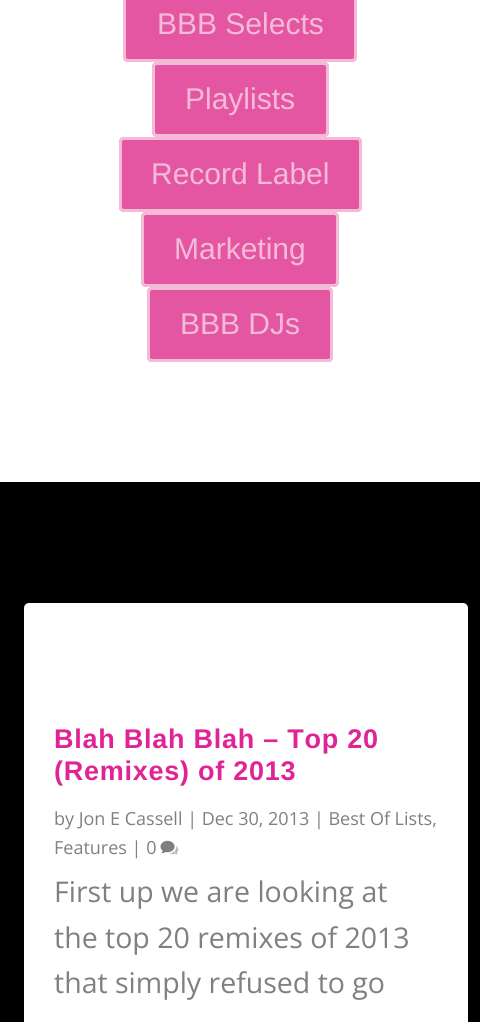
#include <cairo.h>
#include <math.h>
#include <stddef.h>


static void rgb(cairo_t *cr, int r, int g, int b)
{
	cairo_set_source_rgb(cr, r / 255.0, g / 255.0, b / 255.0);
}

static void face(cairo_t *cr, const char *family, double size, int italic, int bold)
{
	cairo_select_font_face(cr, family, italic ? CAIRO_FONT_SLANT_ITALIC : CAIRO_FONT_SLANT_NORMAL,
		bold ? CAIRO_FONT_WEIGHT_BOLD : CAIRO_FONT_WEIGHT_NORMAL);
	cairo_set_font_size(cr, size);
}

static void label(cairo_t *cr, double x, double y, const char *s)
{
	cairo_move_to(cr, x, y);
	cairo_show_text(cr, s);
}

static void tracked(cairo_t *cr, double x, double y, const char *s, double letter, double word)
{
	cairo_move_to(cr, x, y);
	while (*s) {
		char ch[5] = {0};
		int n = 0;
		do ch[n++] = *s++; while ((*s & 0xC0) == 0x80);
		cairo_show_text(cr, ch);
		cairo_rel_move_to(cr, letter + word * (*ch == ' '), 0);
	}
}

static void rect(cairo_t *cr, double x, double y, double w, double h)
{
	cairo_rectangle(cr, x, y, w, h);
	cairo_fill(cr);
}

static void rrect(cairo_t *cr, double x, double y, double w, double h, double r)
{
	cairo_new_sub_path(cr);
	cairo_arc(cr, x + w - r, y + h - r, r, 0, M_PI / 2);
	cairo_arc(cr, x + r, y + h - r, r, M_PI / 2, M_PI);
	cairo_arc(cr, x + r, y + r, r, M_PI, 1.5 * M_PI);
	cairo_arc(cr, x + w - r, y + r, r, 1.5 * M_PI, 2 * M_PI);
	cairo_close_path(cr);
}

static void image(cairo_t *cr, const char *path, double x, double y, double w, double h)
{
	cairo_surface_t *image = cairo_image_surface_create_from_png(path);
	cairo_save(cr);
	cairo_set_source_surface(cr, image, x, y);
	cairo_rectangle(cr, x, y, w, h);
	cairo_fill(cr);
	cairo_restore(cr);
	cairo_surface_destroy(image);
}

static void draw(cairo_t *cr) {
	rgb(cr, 0, 0, 0);
	cairo_paint(cr);
	rgb(cr, 255, 255, 255);
	rect(cr, 0, 0, 480, 482);
	rgb(cr, 228, 86, 161);
	rrect(cr, 123, -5, 234, 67, 5);
	cairo_fill(cr);
	rrect(cr, 124.5, -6.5, 231, 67, 3.5);
	cairo_set_source_rgba(cr, 1, 1, 1, 0.6);
	cairo_set_line_width(cr, 3);
	cairo_stroke(cr);
	face(cr, "Liberation Sans", 30, 0, 0);
	rgb(cr, 244, 187, 217);
	label(cr, 157, 34, "BBB Selects");
	rgb(cr, 228, 86, 161);
	rrect(cr, 152, 62, 177, 75, 5);
	cairo_fill(cr);
	rrect(cr, 153.5, 63.5, 174, 72, 3.5);
	cairo_set_source_rgba(cr, 1, 1, 1, 0.6);
	cairo_stroke(cr);
	rgb(cr, 244, 187, 217);
	label(cr, 185, 109, "Playlists");
	rgb(cr, 228, 86, 161);
	rrect(cr, 119, 137, 243, 75, 5);
	cairo_fill(cr);
	rrect(cr, 120.5, 138.5, 240, 72, 3.5);
	cairo_set_source_rgba(cr, 1, 1, 1, 0.6);
	cairo_stroke(cr);
	rgb(cr, 244, 187, 217);
	label(cr, 151, 184, "Record Label");
	rgb(cr, 228, 86, 161);
	rrect(cr, 141, 212, 198, 75, 5);
	cairo_fill(cr);
	rrect(cr, 142.5, 213.5, 195, 72, 3.5);
	cairo_set_source_rgba(cr, 1, 1, 1, 0.6);
	cairo_stroke(cr);
	rgb(cr, 244, 187, 217);
	label(cr, 174, 259, "Marketing");
	rgb(cr, 228, 86, 161);
	rrect(cr, 147, 287, 186, 75, 5);
	cairo_fill(cr);
	rrect(cr, 148.5, 288.5, 183, 72, 3.5);
	cairo_set_source_rgba(cr, 1, 1, 1, 0.6);
	cairo_stroke(cr);
	rgb(cr, 244, 187, 217);
	label(cr, 180, 334, "BBB DJs");
	rgb(cr, 255, 255, 255);
	rrect(cr, 24, 603, 444, 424, 5);
	cairo_fill(cr);
	face(cr, "Liberation Sans", 27, 0, 1);
	rgb(cr, 224, 36, 150);
	tracked(cr, 54, 748, "Blah Blah Blah – Top 20", 0.75, 0);
	tracked(cr, 54, 780, "(Remixes) of 2013", 0.75, 0);
	face(cr, "Open Sans", 18, 0, 0);
	rgb(cr, 128, 128, 128);
	label(cr, 54, 825, "by Jon E Cassell | Dec 30, 2013 | Best Of Lists,");
	label(cr, 54, 854, "Features | 0");
	image(cr, "image0.png", 160, 840, 19, 15);
	face(cr, "Open Sans", 28.5, 0, 0);
	label(cr, 54, 902, "First up we are looking at");
	label(cr, 54, 948, "the top 20 remixes of 2013");
	label(cr, 54, 993, "that simply refused to go");
}

int main(void) {
	cairo_surface_t *surface = cairo_image_surface_create(CAIRO_FORMAT_RGB24, 480, 1022);
	cairo_t *cr = cairo_create(surface);
	cairo_font_options_t *options = cairo_font_options_create();
	cairo_font_options_set_hint_metrics(options, CAIRO_HINT_METRICS_OFF);
	cairo_font_options_set_hint_style(options, CAIRO_HINT_STYLE_NONE);
	cairo_set_font_options(cr, options);
	cairo_set_miter_limit(cr, 4);
	draw(cr);
	cairo_surface_write_to_png(surface, "render.png");
	cairo_font_options_destroy(options);
	cairo_destroy(cr);
	cairo_surface_destroy(surface);
	return 0;
}
